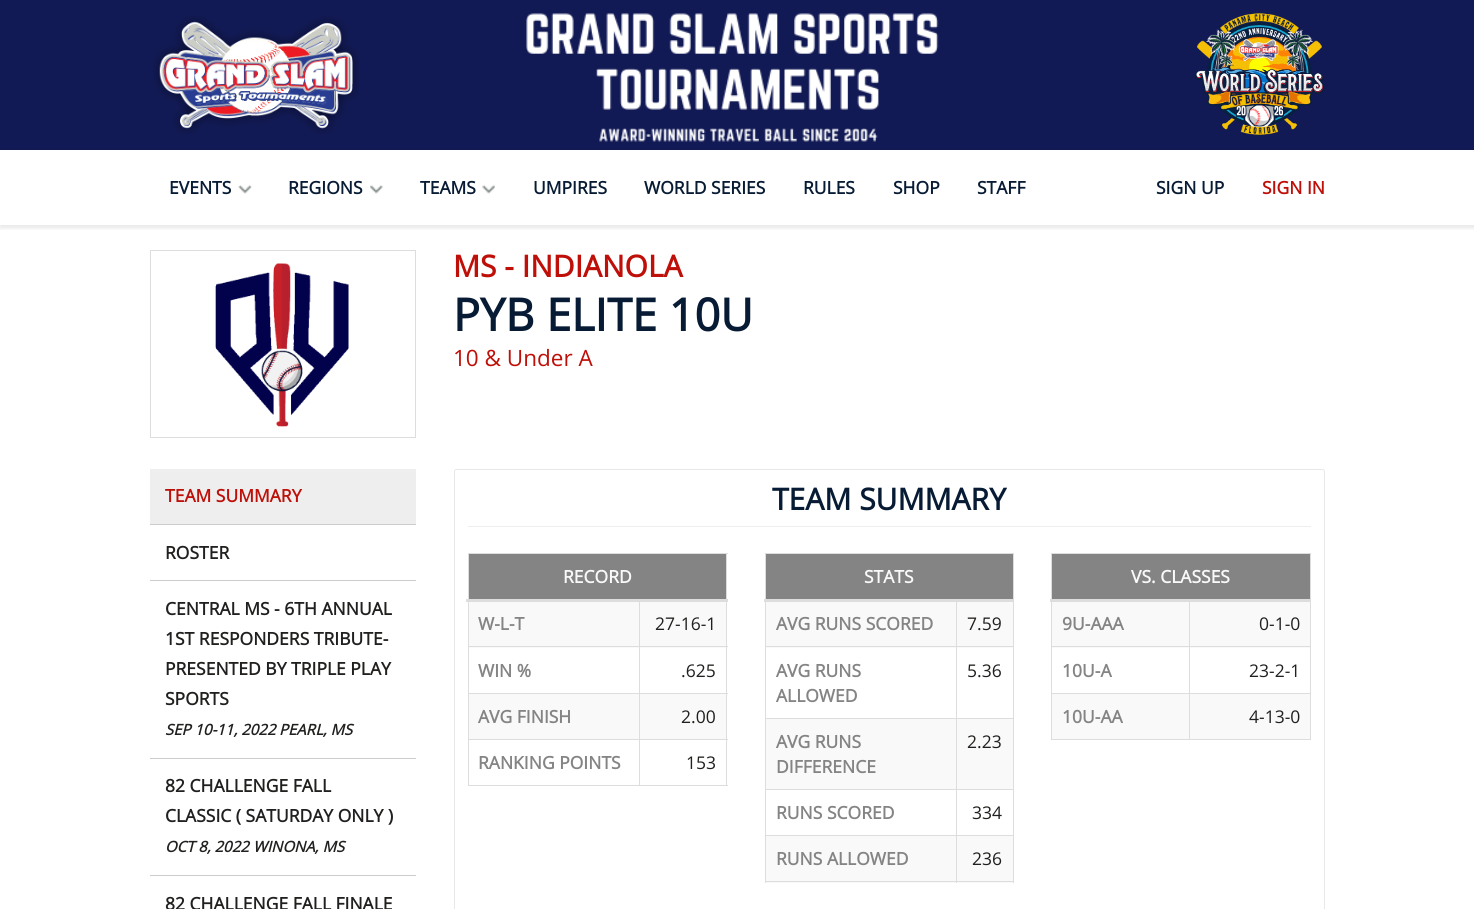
#include <cairo.h>
#include <math.h>
#include <stddef.h>


static void rgb(cairo_t *cr, int r, int g, int b)
{
	cairo_set_source_rgb(cr, r / 255.0, g / 255.0, b / 255.0);
}

static void face(cairo_t *cr, const char *family, double size, int italic, int bold)
{
	cairo_select_font_face(cr, family, italic ? CAIRO_FONT_SLANT_ITALIC : CAIRO_FONT_SLANT_NORMAL,
		bold ? CAIRO_FONT_WEIGHT_BOLD : CAIRO_FONT_WEIGHT_NORMAL);
	cairo_set_font_size(cr, size);
}

static void label(cairo_t *cr, double x, double y, const char *s)
{
	cairo_move_to(cr, x, y);
	cairo_show_text(cr, s);
}

static void rect(cairo_t *cr, double x, double y, double w, double h)
{
	cairo_rectangle(cr, x, y, w, h);
	cairo_fill(cr);
}

static void rrect(cairo_t *cr, double x, double y, double w, double h, double r)
{
	cairo_new_sub_path(cr);
	cairo_arc(cr, x + w - r, y + h - r, r, 0, M_PI / 2);
	cairo_arc(cr, x + r, y + h - r, r, M_PI / 2, M_PI);
	cairo_arc(cr, x + r, y + r, r, M_PI, 1.5 * M_PI);
	cairo_arc(cr, x + w - r, y + r, r, 1.5 * M_PI, 2 * M_PI);
	cairo_close_path(cr);
}

static void soft_shadow(cairo_t *cr, double x, double y, double w, double h, double r, double blur, double alpha)
{
	cairo_push_group_with_content(cr, CAIRO_CONTENT_ALPHA);
	cairo_set_operator(cr, CAIRO_OPERATOR_SOURCE);
	for (int i = 15; i >= -15 && fmin(w, h) + blur * i / 3 > 0; i -= 2) {
		double e = blur * i / 6;
		cairo_set_source_rgba(cr, 0, 0, 0, alpha * erfc((i - 1) / 8.5) / 2);
		rrect(cr, x - e, y - e, w + 2 * e, h + 2 * e, fmax(0, fmin(r + e + blur * .6, fmin(w, h) / 2 + e)));
		cairo_fill(cr);
	}
	cairo_pattern_t *soft = cairo_pop_group(cr);
	cairo_mask(cr, soft);
	cairo_pattern_destroy(soft);
}

static void image(cairo_t *cr, const char *path, double x, double y, double w, double h)
{
	cairo_surface_t *image = cairo_image_surface_create_from_png(path);
	cairo_save(cr);
	cairo_set_source_surface(cr, image, x, y);
	cairo_rectangle(cr, x, y, w, h);
	cairo_fill(cr);
	cairo_restore(cr);
	cairo_surface_destroy(image);
}

static void draw(cairo_t *cr) {
	rgb(cr, 255, 255, 255);
	cairo_paint(cr);
	rgb(cr, 18, 26, 85);
	rect(cr, 0, 0, 1474, 150);
	image(cr, "image0.png", 526, 13, 413, 129);
	image(cr, "image1.png", 153, 16, 206, 118);
	image(cr, "image2.png", 1194, 13, 131, 124);
	cairo_save(cr);
	cairo_rectangle(cr, 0, 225, 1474, 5);
	cairo_clip(cr);
	rgb(cr, 0, 0, 0);
	soft_shadow(cr, 0, 153, 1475, 75, 0, 2.5, 0.1);
	cairo_restore(cr);
	face(cr, "Open Sans", 17.5, 0, 1);
	rgb(cr, 7, 27, 52);
	label(cr, 169, 194, "EVENTS");
	image(cr, "image3.png", 238, 185, 14, 9);
	label(cr, 288, 194, "REGIONS");
	image(cr, "image4.png", 370, 185, 13, 9);
	label(cr, 420, 194, "TEAMS");
	image(cr, "image5.png", 482, 185, 13, 9);
	label(cr, 533, 194, "UMPIRES");
	label(cr, 644, 194, "WORLD SERIES");
	label(cr, 803, 194, "RULES");
	label(cr, 893, 194, "SHOP");
	label(cr, 977, 194, "STAFF");
	label(cr, 1156, 194, "SIGN UP");
	rgb(cr, 190, 15, 8);
	label(cr, 1262, 194, "SIGN IN");
	cairo_rectangle(cr, 150.5, 250.5, 265, 187);
	rgb(cr, 221, 221, 221);
	cairo_set_line_width(cr, 1);
	cairo_stroke(cr);
	image(cr, "image6.png", 215, 263, 134, 164);
	face(cr, "Open Sans", 30, 0, 1);
	rgb(cr, 190, 15, 8);
	label(cr, 453, 277, "MS - INDIANOLA");
	face(cr, "Open Sans", 45, 0, 1);
	rgb(cr, 7, 27, 52);
	label(cr, 453, 331, "PYB ELITE 10U");
	face(cr, "Open Sans", 22.5, 0, 0);
	rgb(cr, 190, 15, 8);
	label(cr, 453, 366, "10 & Under A");
	rgb(cr, 238, 238, 238);
	rect(cr, 150, 469, 266, 55);
	face(cr, "Open Sans", 17.5, 0, 1);
	rgb(cr, 190, 15, 8);
	label(cr, 165, 502, "TEAM SUMMARY");
	rgb(cr, 204, 204, 204);
	rect(cr, 150, 524, 266, 1);
	rgb(cr, 33, 32, 30);
	label(cr, 165, 559, "ROSTER");
	rgb(cr, 204, 204, 204);
	rect(cr, 150, 580, 266, 1);
	rgb(cr, 33, 32, 30);
	label(cr, 165, 615, "CENTRAL MS - 6TH ANNUAL");
	label(cr, 165, 645, "1ST RESPONDERS TRIBUTE-");
	label(cr, 165, 675, "PRESENTED BY TRIPLE PLAY");
	label(cr, 165, 705, "SPORTS");
	face(cr, "Open Sans", 15, 1, 1);
	label(cr, 165, 735, "SEP 10-11, 2022");
	label(cr, 279, 735, "PEARL, MS");
	rgb(cr, 204, 204, 204);
	rect(cr, 150, 758, 266, 1);
	face(cr, "Open Sans", 17.5, 0, 1);
	rgb(cr, 33, 32, 30);
	label(cr, 165, 792, "82 CHALLENGE FALL");
	label(cr, 165, 822, "CLASSIC ( SATURDAY ONLY )");
	face(cr, "Open Sans", 15, 1, 1);
	label(cr, 165, 852, "OCT 8, 2022");
	label(cr, 253, 852, "WINONA, MS");
	rgb(cr, 204, 204, 204);
	rect(cr, 150, 875, 266, 1);
	face(cr, "Open Sans", 17.5, 0, 1);
	rgb(cr, 33, 32, 30);
	label(cr, 165, 910, "82 CHALLENGE FALL FINALE");
	rrect(cr, 454.5, 469.5, 870, 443, 2);
	rgb(cr, 232, 232, 232);
	cairo_stroke(cr);
	rgb(cr, 238, 238, 238);
	rect(cr, 468, 526, 843, 1);
	face(cr, "Open Sans", 30, 0, 1);
	rgb(cr, 7, 27, 52);
	label(cr, 772, 510, "TEAM SUMMARY");
	rgb(cr, 221, 221, 221);
	rect(cr, 468, 553, 260, 1);
	rect(cr, 726, 553, 1, 233);
	rect(cr, 468, 785, 260, 1);
	rect(cr, 468, 553, 1, 233);
	rgb(cr, 132, 132, 132);
	rect(cr, 469, 554, 257, 45);
	rgb(cr, 249, 249, 249);
	rect(cr, 469, 602, 257, 46);
	rgb(cr, 221, 221, 221);
	rect(cr, 639, 646, 89, 1);
	rect(cr, 639, 693, 89, 1);
	rgb(cr, 249, 249, 249);
	rect(cr, 469, 694, 257, 45);
	rgb(cr, 221, 221, 221);
	rect(cr, 639, 739, 89, 1);
	rect(cr, 639, 739, 1, 47);
	rect(cr, 468, 739, 172, 1);
	rect(cr, 639, 693, 1, 47);
	rect(cr, 468, 693, 172, 1);
	rect(cr, 639, 646, 1, 48);
	rect(cr, 468, 646, 172, 1);
	rect(cr, 639, 600, 1, 48);
	rect(cr, 466, 599, 262, 3);
	face(cr, "Open Sans", 17.5, 0, 1);
	rgb(cr, 249, 249, 249);
	label(cr, 563, 583, "RECORD");
	rgb(cr, 132, 132, 132);
	label(cr, 478, 630, "W-L-T");
	face(cr, "Open Sans", 17.5, 0, 0);
	rgb(cr, 33, 32, 30);
	label(cr, 655, 630, "27-16-1");
	face(cr, "Open Sans", 17.5, 0, 1);
	rgb(cr, 132, 132, 132);
	label(cr, 478, 677, "WIN %");
	face(cr, "Open Sans", 17.5, 0, 0);
	rgb(cr, 33, 32, 30);
	label(cr, 681, 677, ".625");
	face(cr, "Open Sans", 17.5, 0, 1);
	rgb(cr, 132, 132, 132);
	label(cr, 478, 723, "AVG FINISH");
	face(cr, "Open Sans", 17.5, 0, 0);
	rgb(cr, 33, 32, 30);
	label(cr, 681, 723, "2.00");
	face(cr, "Open Sans", 17.5, 0, 1);
	rgb(cr, 132, 132, 132);
	label(cr, 478, 769, "RANKING POINTS");
	face(cr, "Open Sans", 17.5, 0, 0);
	rgb(cr, 33, 32, 30);
	label(cr, 686, 769, "153");
	rgb(cr, 221, 221, 221);
	rect(cr, 765, 553, 249, 1);
	rect(cr, 1013, 553, 1, 330);
	rgb(cr, 249, 249, 249);
	rect(cr, 766, 836, 247, 47);
	rgb(cr, 221, 221, 221);
	rect(cr, 765, 881, 249, 1);
	rect(cr, 765, 553, 1, 330);
	rgb(cr, 132, 132, 132);
	rect(cr, 766, 554, 247, 45);
	rgb(cr, 249, 249, 249);
	rect(cr, 766, 602, 247, 46);
	rgb(cr, 221, 221, 221);
	rect(cr, 956, 646, 58, 1);
	rect(cr, 956, 718, 58, 1);
	rgb(cr, 249, 249, 249);
	rect(cr, 766, 719, 247, 70);
	rgb(cr, 221, 221, 221);
	rect(cr, 956, 789, 58, 1);
	rect(cr, 956, 835, 58, 1);
	rect(cr, 956, 835, 1, 48);
	rect(cr, 765, 835, 193, 1);
	rect(cr, 956, 789, 1, 47);
	rect(cr, 765, 789, 193, 1);
	rect(cr, 956, 718, 1, 72);
	rect(cr, 765, 718, 193, 1);
	rect(cr, 956, 646, 1, 73);
	rect(cr, 765, 646, 193, 1);
	rect(cr, 956, 600, 1, 48);
	rect(cr, 764, 599, 250, 3);
	face(cr, "Open Sans", 17.5, 0, 1);
	rgb(cr, 249, 249, 249);
	label(cr, 864, 583, "STATS");
	rgb(cr, 132, 132, 132);
	label(cr, 776, 630, "AVG RUNS SCORED");
	face(cr, "Open Sans", 17.5, 0, 0);
	rgb(cr, 33, 32, 30);
	label(cr, 967, 630, "7.59");
	face(cr, "Open Sans", 17.5, 0, 1);
	rgb(cr, 132, 132, 132);
	label(cr, 776, 677, "AVG RUNS");
	label(cr, 776, 702, "ALLOWED");
	face(cr, "Open Sans", 17.5, 0, 0);
	rgb(cr, 33, 32, 30);
	label(cr, 967, 677, "5.36");
	face(cr, "Open Sans", 17.5, 0, 1);
	rgb(cr, 132, 132, 132);
	label(cr, 776, 748, "AVG RUNS");
	label(cr, 776, 773, "DIFFERENCE");
	face(cr, "Open Sans", 17.5, 0, 0);
	rgb(cr, 33, 32, 30);
	label(cr, 967, 748, "2.23");
	face(cr, "Open Sans", 17.5, 0, 1);
	rgb(cr, 132, 132, 132);
	label(cr, 776, 819, "RUNS SCORED");
	face(cr, "Open Sans", 17.5, 0, 0);
	rgb(cr, 33, 32, 30);
	label(cr, 972, 819, "334");
	face(cr, "Open Sans", 17.5, 0, 1);
	rgb(cr, 132, 132, 132);
	label(cr, 776, 865, "RUNS ALLOWED");
	face(cr, "Open Sans", 17.5, 0, 0);
	rgb(cr, 33, 32, 30);
	label(cr, 972, 865, "236");
	rgb(cr, 221, 221, 221);
	rect(cr, 1051, 553, 260, 1);
	rect(cr, 1310, 553, 1, 187);
	rect(cr, 1051, 739, 260, 1);
	rect(cr, 1051, 553, 1, 187);
	rgb(cr, 132, 132, 132);
	rect(cr, 1052, 554, 258, 45);
	rgb(cr, 249, 249, 249);
	rect(cr, 1052, 602, 258, 46);
	rgb(cr, 221, 221, 221);
	rect(cr, 1189, 646, 122, 1);
	rect(cr, 1189, 693, 122, 1);
	rgb(cr, 249, 249, 249);
	rect(cr, 1052, 694, 258, 45);
	rgb(cr, 221, 221, 221);
	rect(cr, 1189, 693, 1, 47);
	rect(cr, 1051, 693, 139, 1);
	rect(cr, 1189, 646, 1, 48);
	rect(cr, 1051, 646, 139, 1);
	rect(cr, 1189, 600, 1, 48);
	rect(cr, 1050, 599, 261, 3);
	face(cr, "Open Sans", 17.5, 0, 1);
	rgb(cr, 249, 249, 249);
	label(cr, 1131, 583, "VS. CLASSES");
	rgb(cr, 132, 132, 132);
	label(cr, 1062, 630, "9U-AAA");
	face(cr, "Open Sans", 17.5, 0, 0);
	rgb(cr, 33, 32, 30);
	label(cr, 1259, 630, "0-1-0");
	face(cr, "Open Sans", 17.5, 0, 1);
	rgb(cr, 132, 132, 132);
	label(cr, 1062, 677, "10U-A");
	face(cr, "Open Sans", 17.5, 0, 0);
	rgb(cr, 33, 32, 30);
	label(cr, 1249, 677, "23-2-1");
	face(cr, "Open Sans", 17.5, 0, 1);
	rgb(cr, 132, 132, 132);
	label(cr, 1062, 723, "10U-AA");
	face(cr, "Open Sans", 17.5, 0, 0);
	rgb(cr, 33, 32, 30);
	label(cr, 1249, 723, "4-13-0");
}

int main(void) {
	cairo_surface_t *surface = cairo_image_surface_create(CAIRO_FORMAT_RGB24, 1474, 909);
	cairo_t *cr = cairo_create(surface);
	cairo_font_options_t *options = cairo_font_options_create();
	cairo_font_options_set_hint_metrics(options, CAIRO_HINT_METRICS_OFF);
	cairo_font_options_set_hint_style(options, CAIRO_HINT_STYLE_NONE);
	cairo_set_font_options(cr, options);
	cairo_set_miter_limit(cr, 4);
	draw(cr);
	cairo_surface_write_to_png(surface, "render.png");
	cairo_font_options_destroy(options);
	cairo_destroy(cr);
	cairo_surface_destroy(surface);
	return 0;
}
